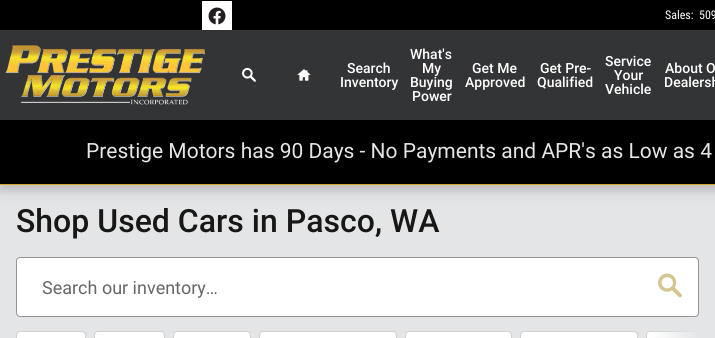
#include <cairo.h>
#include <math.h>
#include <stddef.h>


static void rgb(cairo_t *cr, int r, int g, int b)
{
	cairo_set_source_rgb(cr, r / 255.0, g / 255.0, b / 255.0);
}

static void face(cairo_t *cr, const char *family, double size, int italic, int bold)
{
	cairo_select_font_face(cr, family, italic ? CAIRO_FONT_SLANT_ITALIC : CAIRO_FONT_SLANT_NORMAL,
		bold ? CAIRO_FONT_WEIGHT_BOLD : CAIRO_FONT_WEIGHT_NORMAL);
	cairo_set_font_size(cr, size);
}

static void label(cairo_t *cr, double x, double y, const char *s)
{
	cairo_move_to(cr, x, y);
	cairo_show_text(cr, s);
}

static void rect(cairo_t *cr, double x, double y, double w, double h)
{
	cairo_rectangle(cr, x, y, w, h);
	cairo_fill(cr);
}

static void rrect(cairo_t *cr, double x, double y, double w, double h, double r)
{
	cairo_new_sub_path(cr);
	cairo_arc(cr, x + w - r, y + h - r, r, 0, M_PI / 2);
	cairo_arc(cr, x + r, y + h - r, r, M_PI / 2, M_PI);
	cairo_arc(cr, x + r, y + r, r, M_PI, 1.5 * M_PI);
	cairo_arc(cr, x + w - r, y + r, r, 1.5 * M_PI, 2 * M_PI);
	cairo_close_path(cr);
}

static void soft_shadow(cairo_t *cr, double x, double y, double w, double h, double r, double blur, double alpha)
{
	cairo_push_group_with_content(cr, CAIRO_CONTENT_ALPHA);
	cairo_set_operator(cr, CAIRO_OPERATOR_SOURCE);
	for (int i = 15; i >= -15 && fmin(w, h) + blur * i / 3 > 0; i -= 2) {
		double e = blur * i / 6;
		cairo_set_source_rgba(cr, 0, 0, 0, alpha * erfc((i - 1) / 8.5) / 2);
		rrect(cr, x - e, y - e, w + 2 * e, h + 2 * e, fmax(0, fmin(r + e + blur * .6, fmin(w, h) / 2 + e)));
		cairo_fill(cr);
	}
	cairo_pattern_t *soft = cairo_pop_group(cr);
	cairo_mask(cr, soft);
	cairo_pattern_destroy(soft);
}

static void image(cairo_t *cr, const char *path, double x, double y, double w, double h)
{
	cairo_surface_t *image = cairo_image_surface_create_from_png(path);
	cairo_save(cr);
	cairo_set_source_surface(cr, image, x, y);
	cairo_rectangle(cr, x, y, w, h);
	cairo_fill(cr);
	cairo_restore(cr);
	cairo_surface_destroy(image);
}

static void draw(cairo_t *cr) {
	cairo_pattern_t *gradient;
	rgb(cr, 228, 229, 230);
	cairo_paint(cr);
	rgb(cr, 0, 0, 0);
	soft_shadow(cr, 0, 6, 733, 185, 0, 6, 0.18);
	rgb(cr, 51, 52, 54);
	rect(cr, 0, 30, 715, 90);
	rgb(cr, 207, 168, 41);
	rect(cr, 0, 184, 715, 1);
	rgb(cr, 0, 0, 0);
	rect(cr, 0, 0, 715, 30);
	image(cr, "image0.png", 202, 1, 30, 29);
	face(cr, "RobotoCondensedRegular", 12, 0, 0);
	rgb(cr, 255, 255, 255);
	label(cr, 665, 19, "Sales:");
	label(cr, 699, 19, "509");
	image(cr, "image1.png", 5, 45, 200, 60);
	image(cr, "image2.png", 242, 67, 14, 15);
	image(cr, "image3.png", 297, 69, 14, 12);
	face(cr, "Roboto Medium", 14, 0, 0);
	label(cr, 347, 73, "Search");
	label(cr, 340, 87, "Inventory");
	label(cr, 410, 59, "What's");
	label(cr, 422, 73, "My");
	label(cr, 410, 87, "Buying");
	label(cr, 412, 101, "Power");
	label(cr, 472, 73, "Get Me");
	label(cr, 465, 87, "Approved");
	label(cr, 540, 73, "Get Pre-");
	label(cr, 537, 87, "Qualified");
	label(cr, 605, 66, "Service");
	label(cr, 614, 80, "Your");
	label(cr, 605, 94, "Vehicle");
	label(cr, 665, 73, "About O");
	label(cr, 664, 87, "Dealersh");
	rgb(cr, 0, 0, 0);
	rect(cr, 0, 120, 715, 64);
	face(cr, "Roboto", 21, 0, 0);
	rgb(cr, 230, 230, 230);
	label(cr, 86, 158, "Prestige Motors has 90 Days - No Payments and APR's as Low as 4");
	face(cr, "Roboto Medium", 32, 0, 0);
	rgb(cr, 23, 23, 23);
	label(cr, 16, 232, "Shop Used Cars in Pasco, WA");
	rgb(cr, 255, 255, 255);
	rrect(cr, 16.5, 257.5, 682, 59, 3.5);
	cairo_fill_preserve(cr);
	rgb(cr, 148, 149, 153);
	cairo_set_line_width(cr, 1);
	cairo_stroke(cr);
	face(cr, "Roboto", 18, 0, 0);
	rgb(cr, 102, 102, 102);
	label(cr, 42, 294, "Search our inventory…");
	image(cr, "image4.png", 658, 273, 24, 25);
	rgb(cr, 255, 255, 255);
	rrect(cr, 16.5, 331.5, 69, 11, 3.5);
	cairo_fill_preserve(cr);
	rgb(cr, 206, 207, 209);
	cairo_stroke(cr);
	rgb(cr, 255, 255, 255);
	rrect(cr, 94.5, 331.5, 70, 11, 3.5);
	cairo_fill_preserve(cr);
	rgb(cr, 206, 207, 209);
	cairo_stroke(cr);
	rgb(cr, 255, 255, 255);
	rrect(cr, 173.5, 331.5, 77, 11, 3.5);
	cairo_fill_preserve(cr);
	rgb(cr, 206, 207, 209);
	cairo_stroke(cr);
	rgb(cr, 255, 255, 255);
	rrect(cr, 259.5, 331.5, 137, 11, 3.5);
	cairo_fill_preserve(cr);
	rgb(cr, 206, 207, 209);
	cairo_stroke(cr);
	rgb(cr, 255, 255, 255);
	rrect(cr, 405.5, 331.5, 106, 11, 3.5);
	cairo_fill_preserve(cr);
	rgb(cr, 206, 207, 209);
	cairo_stroke(cr);
	rgb(cr, 255, 255, 255);
	rrect(cr, 520.5, 331.5, 117, 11, 3.5);
	cairo_fill_preserve(cr);
	rgb(cr, 206, 207, 209);
	cairo_stroke(cr);
	rgb(cr, 255, 255, 255);
	cairo_new_path(cr);
	cairo_move_to(cr, 650, 331);
	cairo_line_to(cr, 699, 331);
	cairo_line_to(cr, 699, 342);
	cairo_line_to(cr, 650, 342);
	cairo_curve_to(cr, 648, 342, 646, 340, 646, 338);
	cairo_line_to(cr, 646, 335);
	cairo_curve_to(cr, 646, 333, 648, 331, 650, 331);
	cairo_close_path(cr);
	cairo_fill(cr);
	cairo_save(cr);
	cairo_rectangle(cr, 16, 315, 683, 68);
	cairo_clip(cr);
	rrect(cr, 646.5, 331.5, 58, 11, 3.5);
	rgb(cr, 206, 207, 209);
	cairo_stroke(cr);
	cairo_restore(cr);
	gradient = cairo_pattern_create_linear(699, 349, 651, 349);
	cairo_pattern_add_color_stop_rgba(gradient, 0, 0.894, 0.898, 0.902, 1);
	cairo_pattern_add_color_stop_rgba(gradient, 1, 0.894, 0.898, 0.902, 0);
	cairo_set_source(cr, gradient);
	cairo_pattern_destroy(gradient);
	rect(cr, 651, 331, 48, 7);
}

int main(void) {
	cairo_surface_t *surface = cairo_image_surface_create(CAIRO_FORMAT_RGB24, 715, 338);
	cairo_t *cr = cairo_create(surface);
	cairo_font_options_t *options = cairo_font_options_create();
	cairo_font_options_set_hint_metrics(options, CAIRO_HINT_METRICS_OFF);
	cairo_font_options_set_hint_style(options, CAIRO_HINT_STYLE_NONE);
	cairo_set_font_options(cr, options);
	cairo_set_miter_limit(cr, 4);
	draw(cr);
	cairo_surface_write_to_png(surface, "render.png");
	cairo_font_options_destroy(options);
	cairo_destroy(cr);
	cairo_surface_destroy(surface);
	return 0;
}
